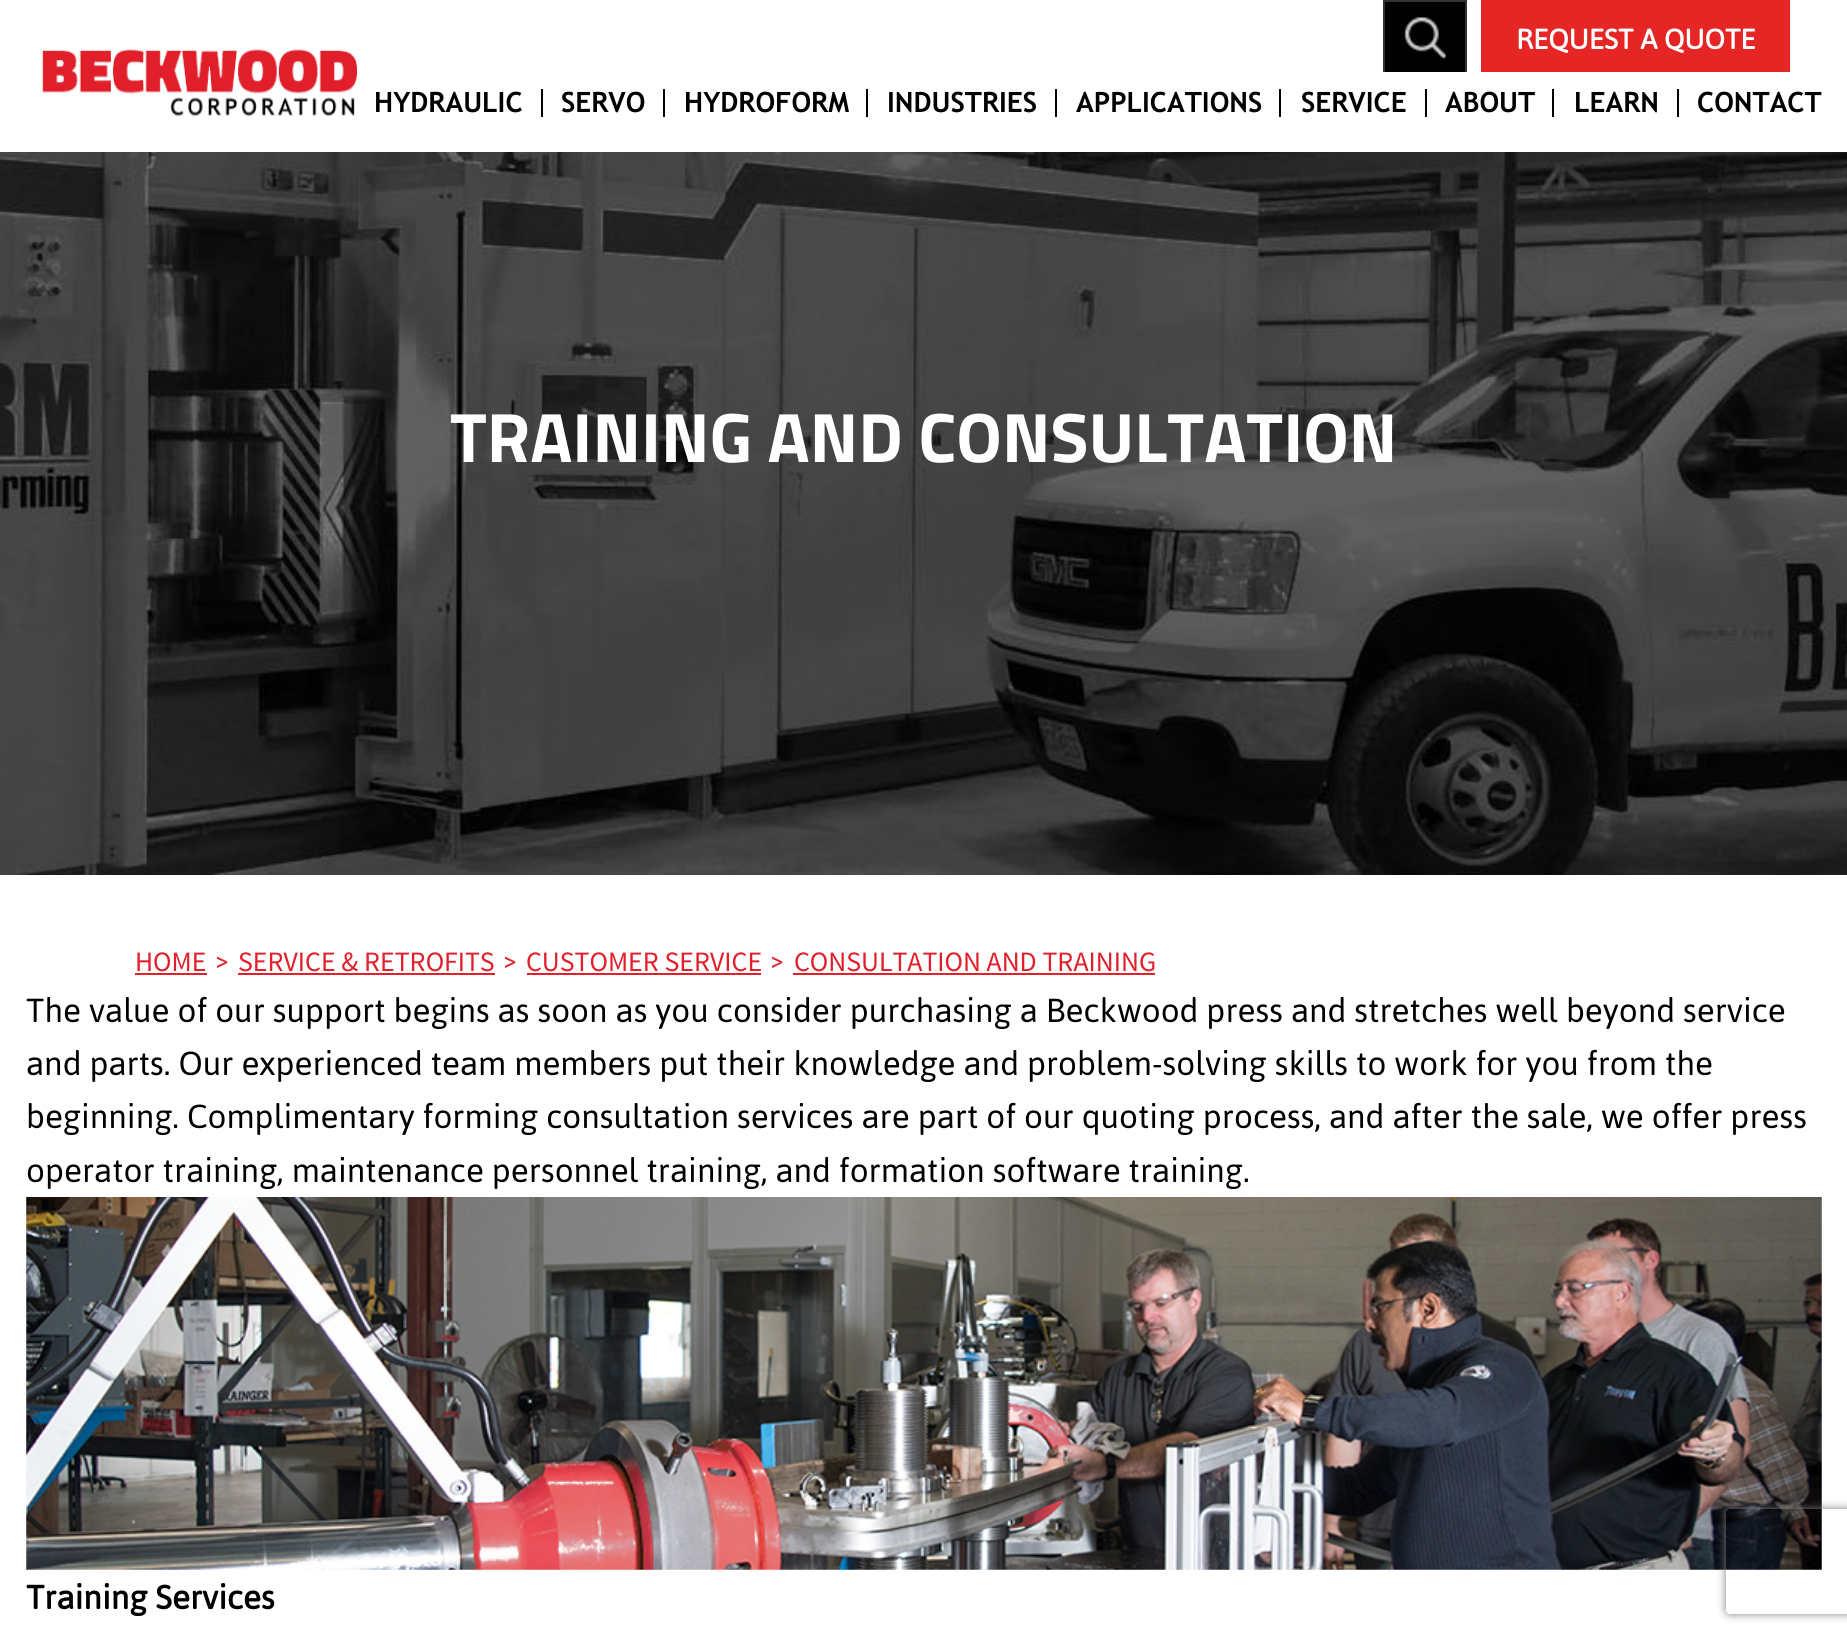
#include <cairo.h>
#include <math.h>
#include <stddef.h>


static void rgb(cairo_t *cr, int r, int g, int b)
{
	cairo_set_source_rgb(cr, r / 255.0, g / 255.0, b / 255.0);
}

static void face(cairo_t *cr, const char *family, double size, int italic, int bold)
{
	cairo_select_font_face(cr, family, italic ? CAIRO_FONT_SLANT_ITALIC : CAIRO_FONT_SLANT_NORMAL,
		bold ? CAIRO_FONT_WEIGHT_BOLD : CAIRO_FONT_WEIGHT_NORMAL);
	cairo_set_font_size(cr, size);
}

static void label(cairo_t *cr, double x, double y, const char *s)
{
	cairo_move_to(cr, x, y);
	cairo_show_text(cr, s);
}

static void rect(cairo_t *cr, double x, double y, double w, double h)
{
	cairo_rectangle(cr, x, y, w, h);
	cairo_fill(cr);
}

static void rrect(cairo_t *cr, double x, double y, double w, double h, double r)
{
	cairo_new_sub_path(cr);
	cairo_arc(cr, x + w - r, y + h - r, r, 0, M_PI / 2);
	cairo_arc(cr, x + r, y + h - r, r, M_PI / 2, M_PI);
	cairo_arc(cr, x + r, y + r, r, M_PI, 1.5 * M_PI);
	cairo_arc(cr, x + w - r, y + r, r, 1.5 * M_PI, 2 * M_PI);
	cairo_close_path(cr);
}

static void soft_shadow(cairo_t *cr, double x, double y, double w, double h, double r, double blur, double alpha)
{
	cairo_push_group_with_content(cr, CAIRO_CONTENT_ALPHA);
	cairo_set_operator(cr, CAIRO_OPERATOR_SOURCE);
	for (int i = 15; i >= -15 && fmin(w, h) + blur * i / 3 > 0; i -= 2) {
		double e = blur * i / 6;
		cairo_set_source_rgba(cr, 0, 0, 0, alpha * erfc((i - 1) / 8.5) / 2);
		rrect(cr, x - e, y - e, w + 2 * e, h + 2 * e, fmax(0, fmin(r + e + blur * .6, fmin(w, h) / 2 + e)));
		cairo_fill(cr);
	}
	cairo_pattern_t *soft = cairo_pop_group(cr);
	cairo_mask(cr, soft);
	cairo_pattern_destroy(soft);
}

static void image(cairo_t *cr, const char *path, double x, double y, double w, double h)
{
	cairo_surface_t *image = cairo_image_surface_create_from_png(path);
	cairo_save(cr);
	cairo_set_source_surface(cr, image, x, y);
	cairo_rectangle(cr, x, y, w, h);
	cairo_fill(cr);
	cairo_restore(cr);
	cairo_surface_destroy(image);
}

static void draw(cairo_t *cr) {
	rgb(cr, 255, 255, 255);
	cairo_paint(cr);
	image(cr, "image0.png", 0, 152, 1847, 723);
	rgb(cr, 0, 0, 0);
	rect(cr, 1385, 2, 80, 70);
	image(cr, "image1.png", 1404, 17, 42, 42);
	cairo_rectangle(cr, 1384, 1, 82, 72);
	rgb(cr, 51, 51, 51);
	cairo_stroke(cr);
	rgb(cr, 230, 37, 37);
	rect(cr, 1481, 0, 309, 72);
	face(cr, "Asap", 28, 0, 1);
	rgb(cr, 255, 255, 255);
	label(cr, 1516, 49, "REQUEST A QUOTE");
	image(cr, "image2.png", 42, 49, 315, 68);
	rect(cr, 1383, 72, 84, 2);
	rgb(cr, 0, 0, 0);
	rect(cr, 541, 89, 2, 28);
	face(cr, "Trebuchet MS", 28, 0, 1);
	label(cr, 374, 112, "HYDRAULIC");
	rect(cr, 663, 89, 2, 28);
	label(cr, 561, 112, "SERVO");
	rect(cr, 866, 89, 2, 28);
	label(cr, 684, 112, "HYDROFORM");
	rect(cr, 1055, 89, 2, 28);
	label(cr, 887, 112, "INDUSTRIES");
	rect(cr, 1279, 89, 2, 28);
	label(cr, 1076, 112, "APPLICATIONS");
	rect(cr, 1425, 89, 2, 28);
	label(cr, 1301, 112, "SERVICE");
	rect(cr, 1552, 89, 2, 28);
	label(cr, 1445, 112, "ABOUT");
	rect(cr, 1677, 89, 2, 28);
	label(cr, 1574, 112, "LEARN");
	label(cr, 1697, 112, "CONTACT");
	face(cr, "Titillium Web", 70, 0, 1);
	rgb(cr, 255, 255, 255);
	label(cr, 450, 462, "TRAINING AND CONSULTATION");
	face(cr, "Source Sans Pro", 28, 0, 0);
	rgb(cr, 226, 31, 43);
	label(cr, 135, 971, "HOME");
	rect(cr, 135, 973, 72, 2);
	face(cr, "Trebuchet MS", 28, 0, 0);
	label(cr, 215, 971, ">");
	face(cr, "Source Sans Pro", 28, 0, 0);
	label(cr, 238, 971, "SERVICE & RETROFITS");
	rect(cr, 238, 973, 257, 2);
	face(cr, "Trebuchet MS", 28, 0, 0);
	label(cr, 503, 971, ">");
	face(cr, "Source Sans Pro", 28, 0, 0);
	label(cr, 526, 971, "CUSTOMER SERVICE");
	rect(cr, 527, 973, 234, 2);
	face(cr, "Trebuchet MS", 28, 0, 0);
	label(cr, 770, 971, ">");
	face(cr, "Source Sans Pro", 28, 0, 0);
	label(cr, 794, 971, "CONSULTATION AND TRAINING");
	rect(cr, 793, 973, 362, 2);
	face(cr, "Asap", 33.25, 0, 0);
	rgb(cr, 0, 0, 0);
	label(cr, 26, 1022, "The value of our support begins as soon as you consider purchasing a Beckwood press and stretches well beyond service");
	label(cr, 26, 1075, "and parts. Our experienced team members put their knowledge and problem-solving skills to work for you from the");
	label(cr, 26, 1128, "beginning. Complimentary forming consultation services are part of our quoting process, and after the sale, we offer press");
	label(cr, 26, 1182, "operator training, maintenance personnel training, and formation software training.");
	image(cr, "image3.png", 26, 1197, 1796, 373);
	face(cr, "Asap", 33.25, 0, 1);
	label(cr, 26, 1609, "Training Services");
	cairo_save(cr);
	cairo_set_fill_rule(cr, CAIRO_FILL_RULE_EVEN_ODD);
	cairo_new_path(cr);
	cairo_move_to(cr, 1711, 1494);
	cairo_line_to(cr, 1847, 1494);
	cairo_line_to(cr, 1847, 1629);
	cairo_line_to(cr, 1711, 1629);
	cairo_close_path(cr);
	cairo_move_to(cr, 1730, 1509);
	cairo_line_to(cr, 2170, 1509);
	cairo_curve_to(cr, 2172, 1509, 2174, 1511, 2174, 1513);
	cairo_line_to(cr, 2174, 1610);
	cairo_curve_to(cr, 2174, 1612, 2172, 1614, 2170, 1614);
	cairo_line_to(cr, 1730, 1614);
	cairo_curve_to(cr, 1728, 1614, 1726, 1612, 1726, 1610);
	cairo_line_to(cr, 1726, 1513);
	cairo_curve_to(cr, 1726, 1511, 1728, 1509, 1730, 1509);
	cairo_close_path(cr);
	cairo_clip(cr);
	rgb(cr, 128, 128, 128);
	soft_shadow(cr, 1726, 1509, 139, 105, 4, 4.5, 1);
	cairo_restore(cr);
}

int main(void) {
	cairo_surface_t *surface = cairo_image_surface_create(CAIRO_FORMAT_RGB24, 1847, 1638);
	cairo_t *cr = cairo_create(surface);
	cairo_font_options_t *options = cairo_font_options_create();
	cairo_font_options_set_hint_metrics(options, CAIRO_HINT_METRICS_OFF);
	cairo_font_options_set_hint_style(options, CAIRO_HINT_STYLE_NONE);
	cairo_set_font_options(cr, options);
	cairo_set_miter_limit(cr, 4);
	draw(cr);
	cairo_surface_write_to_png(surface, "render.png");
	cairo_font_options_destroy(options);
	cairo_destroy(cr);
	cairo_surface_destroy(surface);
	return 0;
}
